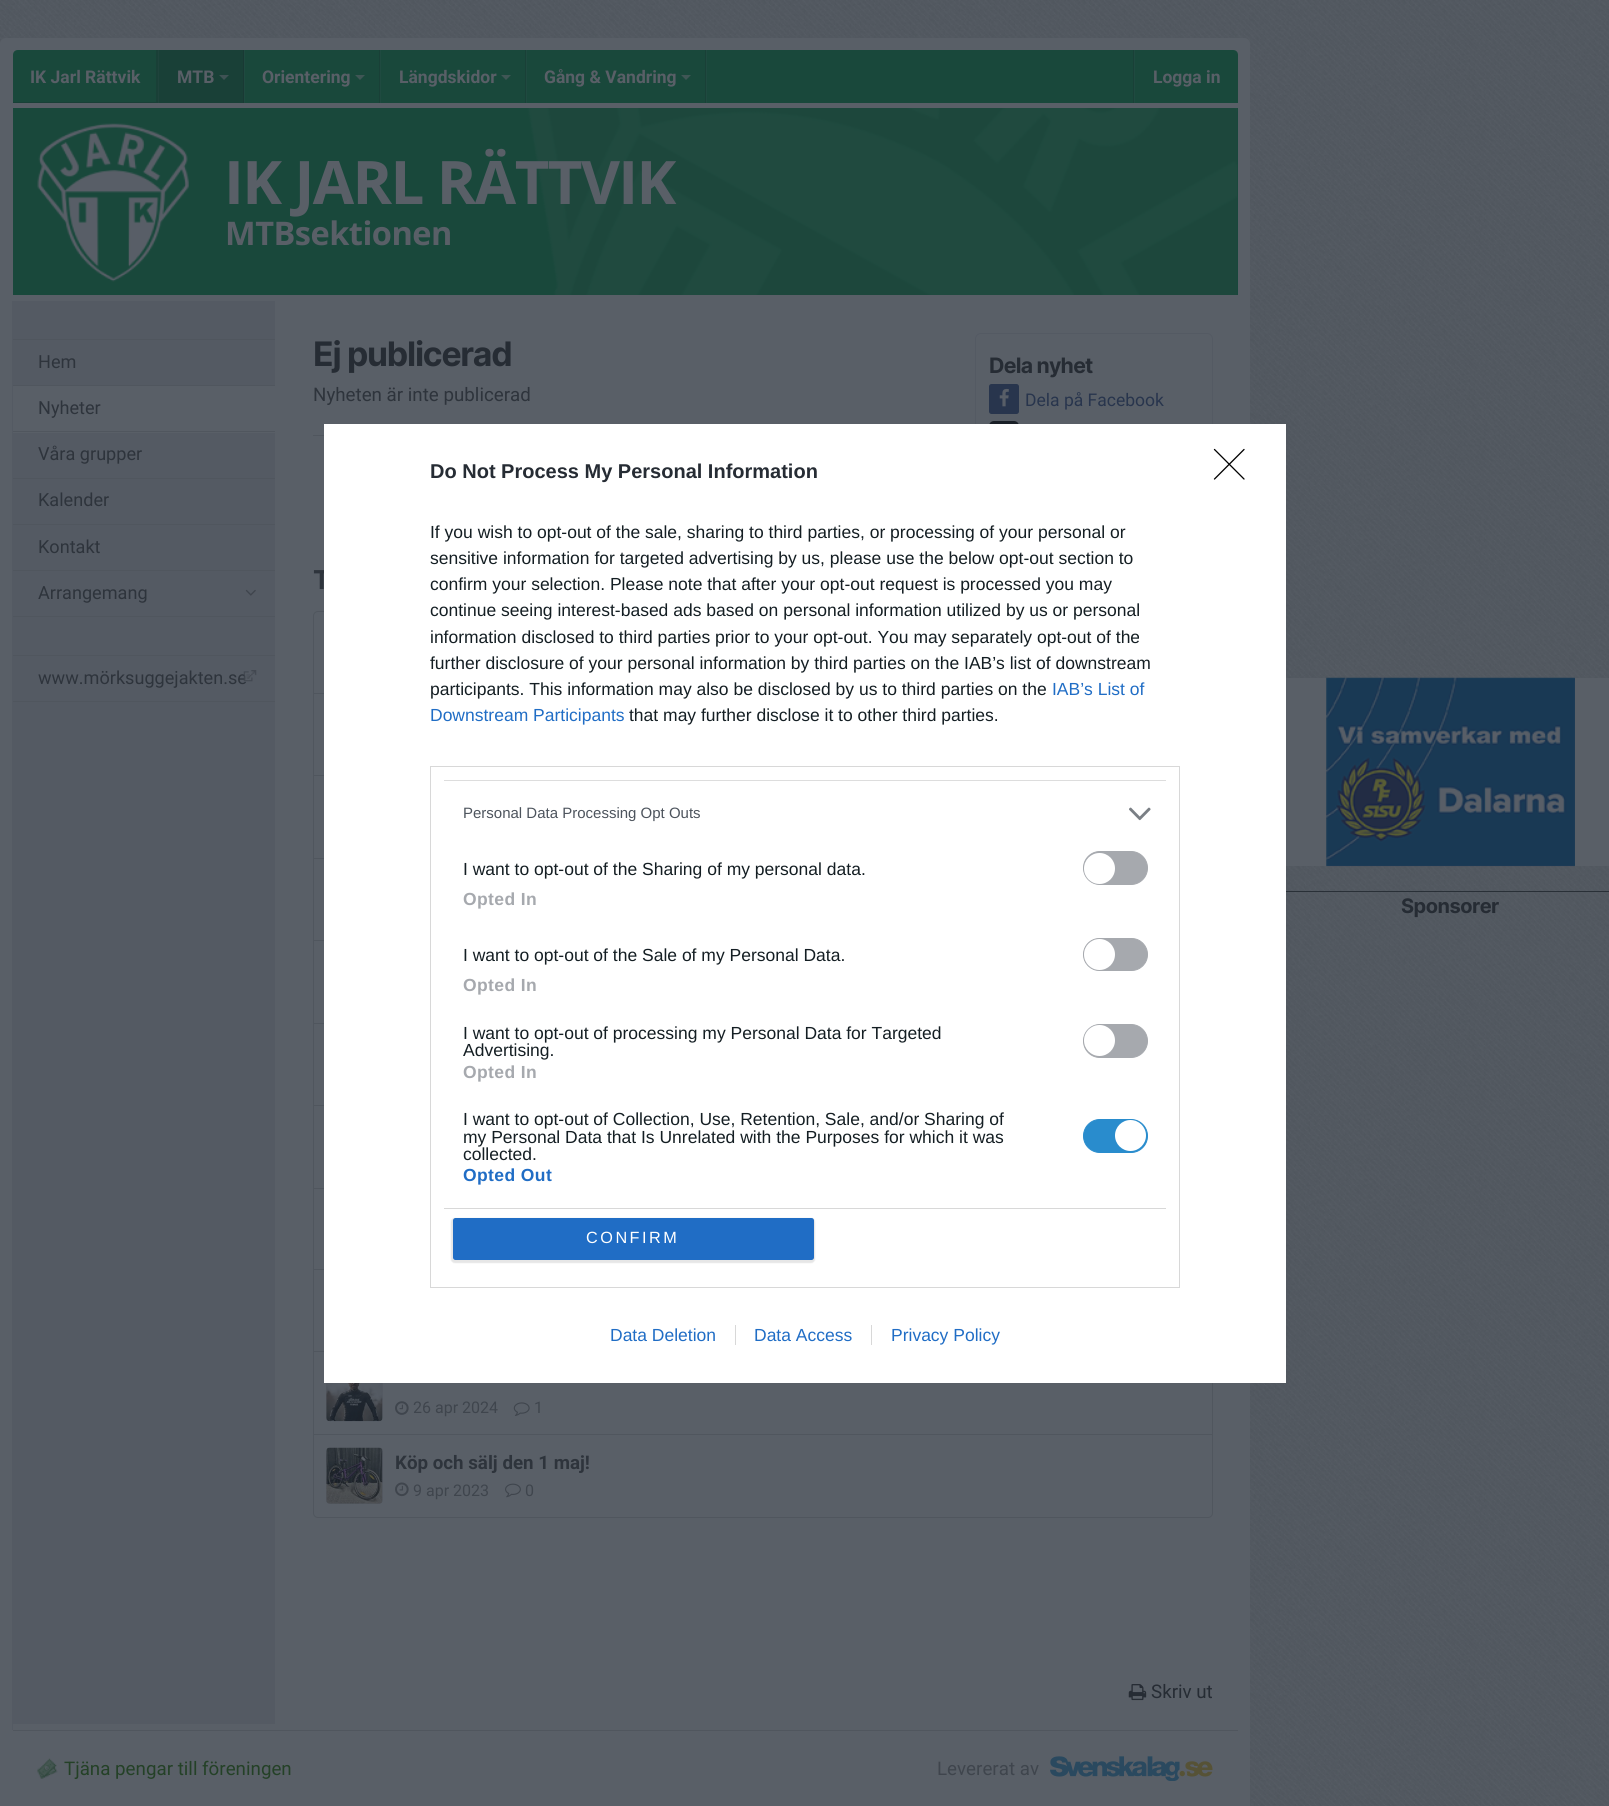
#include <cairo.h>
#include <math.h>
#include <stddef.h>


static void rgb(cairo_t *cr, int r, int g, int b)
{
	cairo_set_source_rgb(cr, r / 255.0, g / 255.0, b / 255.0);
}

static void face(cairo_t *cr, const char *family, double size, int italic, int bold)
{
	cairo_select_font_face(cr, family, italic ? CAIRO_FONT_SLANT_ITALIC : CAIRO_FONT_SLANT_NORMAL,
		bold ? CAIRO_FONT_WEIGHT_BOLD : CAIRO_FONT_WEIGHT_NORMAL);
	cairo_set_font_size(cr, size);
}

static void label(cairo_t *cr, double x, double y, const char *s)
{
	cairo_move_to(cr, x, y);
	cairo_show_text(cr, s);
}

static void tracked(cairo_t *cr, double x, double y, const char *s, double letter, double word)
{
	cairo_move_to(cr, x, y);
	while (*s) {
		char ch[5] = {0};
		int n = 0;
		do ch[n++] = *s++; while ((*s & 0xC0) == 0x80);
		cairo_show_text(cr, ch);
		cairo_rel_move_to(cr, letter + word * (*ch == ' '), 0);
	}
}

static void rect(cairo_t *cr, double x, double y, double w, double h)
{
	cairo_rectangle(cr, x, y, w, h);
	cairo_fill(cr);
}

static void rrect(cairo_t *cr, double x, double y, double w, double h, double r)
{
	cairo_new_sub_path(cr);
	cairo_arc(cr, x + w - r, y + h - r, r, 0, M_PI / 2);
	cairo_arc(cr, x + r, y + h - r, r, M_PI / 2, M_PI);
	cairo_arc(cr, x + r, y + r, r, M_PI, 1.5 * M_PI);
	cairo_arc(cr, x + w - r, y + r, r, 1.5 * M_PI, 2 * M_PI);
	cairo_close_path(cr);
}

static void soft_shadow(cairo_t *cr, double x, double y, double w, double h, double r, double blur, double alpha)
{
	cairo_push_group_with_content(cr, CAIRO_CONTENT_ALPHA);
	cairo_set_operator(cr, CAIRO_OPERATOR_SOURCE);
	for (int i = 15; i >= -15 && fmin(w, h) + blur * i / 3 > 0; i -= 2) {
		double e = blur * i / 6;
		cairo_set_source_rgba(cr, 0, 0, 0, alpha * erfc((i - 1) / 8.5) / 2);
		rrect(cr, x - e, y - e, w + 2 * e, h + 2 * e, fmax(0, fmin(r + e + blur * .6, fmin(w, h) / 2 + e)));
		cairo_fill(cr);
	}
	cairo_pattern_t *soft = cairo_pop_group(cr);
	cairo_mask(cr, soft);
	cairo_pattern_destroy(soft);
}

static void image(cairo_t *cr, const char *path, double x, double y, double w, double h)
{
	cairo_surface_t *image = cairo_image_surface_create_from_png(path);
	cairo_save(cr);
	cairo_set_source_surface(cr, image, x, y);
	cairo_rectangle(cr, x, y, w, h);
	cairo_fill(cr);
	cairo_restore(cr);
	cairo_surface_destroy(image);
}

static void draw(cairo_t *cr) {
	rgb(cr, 255, 255, 255);
	cairo_paint(cr);
	image(cr, "image0.png", 0, 0, 1609, 1806);
	rgb(cr, 89, 95, 103);
	cairo_new_path(cr);
	cairo_move_to(cr, 6, 38);
	cairo_line_to(cr, 1244, 38);
	cairo_curve_to(cr, 1247.5, 38, 1250, 40.5, 1250, 44);
	cairo_line_to(cr, 1250, 1806);
	cairo_line_to(cr, 0, 1806);
	cairo_line_to(cr, 0, 44);
	cairo_curve_to(cr, 0, 40.5, 2.5, 38, 6, 38);
	cairo_close_path(cr);
	cairo_fill(cr);
	rgb(cr, 25, 72, 59);
	cairo_new_path(cr);
	cairo_move_to(cr, 18, 50);
	cairo_line_to(cr, 1233, 50);
	cairo_curve_to(cr, 1236, 50, 1238, 52, 1238, 55);
	cairo_line_to(cr, 1238, 103);
	cairo_line_to(cr, 13, 103);
	cairo_line_to(cr, 13, 55);
	cairo_curve_to(cr, 13, 52, 15, 50, 18, 50);
	cairo_close_path(cr);
	cairo_fill(cr);
	rgb(cr, 31, 74, 64);
	rect(cr, 706, 50, 1, 53);
	rgb(cr, 25, 64, 55);
	cairo_new_path(cr);
	cairo_move_to(cr, 13, 102);
	cairo_line_to(cr, 13, 103);
	cairo_line_to(cr, 158, 103);
	cairo_line_to(cr, 158, 50);
	cairo_line_to(cr, 156, 50);
	cairo_line_to(cr, 156, 102);
	cairo_close_path(cr);
	cairo_fill(cr);
	face(cr, "Roboto", 17.5, 0, 1);
	rgb(cr, 89, 95, 103);
	label(cr, 30, 83, "IK Jarl Rättvik");
	rgb(cr, 25, 64, 55);
	rect(cr, 159, 50, 84, 53);
	rgb(cr, 25, 57, 52);
	rect(cr, 243, 50, 1, 53);
	rgb(cr, 31, 67, 60);
	rect(cr, 158, 50, 1, 53);
	rgb(cr, 89, 95, 103);
	label(cr, 177, 83, "MTB");
	rgb(cr, 63, 82, 84);
	cairo_new_path(cr);
	cairo_move_to(cr, 219, 75);
	cairo_line_to(cr, 229, 75);
	cairo_line_to(cr, 224, 80);
	cairo_close_path(cr);
	cairo_fill(cr);
	rgb(cr, 25, 64, 55);
	rect(cr, 379, 50, 1, 53);
	rgb(cr, 31, 74, 64);
	rect(cr, 244, 50, 1, 53);
	rgb(cr, 89, 95, 103);
	label(cr, 262, 83, "Orientering");
	rgb(cr, 63, 86, 85);
	cairo_new_path(cr);
	cairo_move_to(cr, 355, 75);
	cairo_line_to(cr, 365, 75);
	cairo_line_to(cr, 360, 80);
	cairo_close_path(cr);
	cairo_fill(cr);
	rgb(cr, 25, 64, 55);
	rect(cr, 525, 50, 1, 53);
	rgb(cr, 31, 74, 64);
	rect(cr, 380, 50, 1, 53);
	rgb(cr, 89, 95, 103);
	label(cr, 399, 83, "Längdskidor");
	rgb(cr, 63, 86, 85);
	cairo_new_path(cr);
	cairo_move_to(cr, 501, 75);
	cairo_line_to(cr, 511, 75);
	cairo_line_to(cr, 506, 80);
	cairo_close_path(cr);
	cairo_fill(cr);
	rgb(cr, 25, 64, 55);
	rect(cr, 705, 50, 1, 53);
	rgb(cr, 31, 74, 64);
	rect(cr, 526, 50, 1, 53);
	rgb(cr, 89, 95, 103);
	label(cr, 544, 83, "Gång & Vandring");
	rgb(cr, 63, 86, 85);
	cairo_new_path(cr);
	cairo_move_to(cr, 681, 75);
	cairo_line_to(cr, 691, 75);
	cairo_line_to(cr, 686, 80);
	cairo_close_path(cr);
	cairo_fill(cr);
	rgb(cr, 25, 64, 55);
	rect(cr, 1133, 50, 1, 53);
	rgb(cr, 31, 74, 64);
	rect(cr, 1134, 50, 1, 53);
	rgb(cr, 89, 95, 103);
	label(cr, 1153, 83, "Logga in");
	rgb(cr, 25, 72, 59);
	rect(cr, 13, 108, 1225, 187);
	image(cr, "image1.png", 37, 108, 1201, 187);
	face(cr, "Open Sans", 60, 0, 1);
	rgb(cr, 89, 95, 103);
	tracked(cr, 224, 204, "IK JARL RÄTTVIK", -1.6, 0);
	face(cr, "Open Sans", 32.5, 0, 1);
	tracked(cr, 225, 245, "MTBsektionen", -0.5, 0);
	rgb(cr, 84, 90, 99);
	rect(cr, 12, 301, 263, 1429);
	rgb(cr, 89, 95, 103);
	rect(cr, 13, 1724, 262, 6);
	rgb(cr, 80, 86, 94);
	rect(cr, 13, 339, 262, 1);
	rect(cr, 13, 385, 262, 1);
	face(cr, "Roboto", 18.1, 0, 0);
	rgb(cr, 46, 52, 60);
	label(cr, 38, 368, "Hem");
	rgb(cr, 89, 95, 103);
	rect(cr, 13, 386, 262, 47);
	rgb(cr, 80, 86, 94);
	rect(cr, 13, 431, 262, 1);
	rgb(cr, 46, 52, 60);
	label(cr, 38, 414, "Nyheter");
	rgb(cr, 80, 86, 94);
	rect(cr, 13, 478, 262, 1);
	rgb(cr, 46, 52, 60);
	label(cr, 38, 460, "Våra grupper");
	rgb(cr, 80, 86, 94);
	rect(cr, 13, 524, 262, 1);
	rgb(cr, 46, 52, 60);
	label(cr, 38, 506, "Kalender");
	rgb(cr, 80, 86, 94);
	rect(cr, 13, 570, 262, 1);
	rgb(cr, 46, 52, 60);
	label(cr, 38, 553, "Kontakt");
	rgb(cr, 80, 86, 94);
	rect(cr, 13, 616, 262, 1);
	rgb(cr, 46, 52, 60);
	label(cr, 38, 599, "Arrangemang");
	image(cr, "image2.png", 245, 589, 11, 7);
	rgb(cr, 80, 86, 94);
	rect(cr, 13, 655, 262, 1);
	rect(cr, 13, 701, 262, 1);
	rgb(cr, 46, 52, 60);
	label(cr, 38, 684, "www.mörksuggejakten.se");
	image(cr, "image3.png", 243, 670, 14, 12);
	face(cr, "Inter", 33.75, 0, 1);
	rgb(cr, 38, 44, 52);
	tracked(cr, 313, 366, "Ej publicerad", -1.25, 0);
	face(cr, "Roboto", 18.75, 0, 0);
	rgb(cr, 46, 52, 60);
	label(cr, 313, 401, "Nyheten är inte publicerad");
	rgb(cr, 80, 86, 94);
	rect(cr, 313, 435, 11, 1);
	rrect(cr, 975.5, 333.5, 237, 205, 5.5);
	rgb(cr, 84, 90, 99);
	cairo_set_line_width(cr, 1);
	cairo_stroke(cr);
	face(cr, "Inter", 21.25, 0, 1);
	rgb(cr, 38, 44, 52);
	tracked(cr, 989, 373, "Dela nyhet", -0.75, 0);
	rgb(cr, 40, 53, 77);
	rrect(cr, 989, 384, 30, 30, 2.5);
	cairo_fill(cr);
	image(cr, "image4.png", 999, 388, 10, 19);
	face(cr, "Roboto", 17.5, 0, 0);
	label(cr, 1025, 406, "Dela på Facebook");
	image(cr, "image5.png", 989, 421, 30, 3);
	face(cr, "Inter", 26, 0, 1);
	rgb(cr, 46, 52, 60);
	tracked(cr, 313, 589, "T", -1.25, 0);
	cairo_new_path(cr);
	cairo_move_to(cr, 318, 611.5);
	cairo_line_to(cr, 1208, 611.5);
	cairo_curve_to(cr, 1210.5, 611.5, 1212.5, 613.5, 1212.5, 616);
	cairo_line_to(cr, 1212.5, 693.5);
	cairo_line_to(cr, 313.5, 693.5);
	cairo_line_to(cr, 313.5, 616);
	cairo_curve_to(cr, 313.5, 613.5, 315.5, 611.5, 318, 611.5);
	cairo_close_path(cr);
	rgb(cr, 80, 86, 94);
	cairo_stroke(cr);
	cairo_rectangle(cr, 313.5, 693.5, 899, 82);
	cairo_stroke(cr);
	cairo_rectangle(cr, 313.5, 775.5, 899, 83);
	cairo_stroke(cr);
	cairo_rectangle(cr, 313.5, 858.5, 899, 82);
	cairo_stroke(cr);
	cairo_rectangle(cr, 313.5, 940.5, 899, 83);
	cairo_stroke(cr);
	cairo_rectangle(cr, 313.5, 1023.5, 899, 82);
	cairo_stroke(cr);
	cairo_rectangle(cr, 313.5, 1105.5, 899, 83);
	cairo_stroke(cr);
	cairo_rectangle(cr, 313.5, 1188.5, 899, 81);
	cairo_stroke(cr);
	cairo_rectangle(cr, 313.5, 1269.5, 899, 83);
	cairo_stroke(cr);
	rgb(cr, 89, 95, 103);
	rect(cr, 314, 1352, 898, 1);
	cairo_rectangle(cr, 313.5, 1351.5, 899, 83);
	rgb(cr, 80, 86, 94);
	cairo_stroke(cr);
	rgb(cr, 84, 90, 99);
	rrect(cr, 326, 1365, 57, 56, 4);
	cairo_fill(cr);
	image(cr, "image6.png", 326, 1383, 57, 39);
	image(cr, "image7.png", 395, 1401, 14, 14);
	face(cr, "Roboto", 16, 0, 0);
	rgb(cr, 63, 69, 77);
	label(cr, 413, 1413, "26 apr 2024");
	image(cr, "image8.png", 513, 1402, 17, 14);
	label(cr, 534, 1413, "1");
	rgb(cr, 89, 95, 103);
	cairo_new_path(cr);
	cairo_move_to(cr, 313.5, 1434.5);
	cairo_line_to(cr, 1212.5, 1434.5);
	cairo_line_to(cr, 1212.5, 1513);
	cairo_curve_to(cr, 1212.5, 1515.5, 1210.5, 1517.5, 1208, 1517.5);
	cairo_line_to(cr, 318, 1517.5);
	cairo_curve_to(cr, 315.5, 1517.5, 313.5, 1515.5, 313.5, 1513);
	cairo_close_path(cr);
	cairo_fill_preserve(cr);
	rgb(cr, 80, 86, 94);
	cairo_stroke(cr);
	rgb(cr, 84, 90, 99);
	rrect(cr, 326, 1448, 57, 56, 4);
	cairo_fill(cr);
	image(cr, "image9.png", 326, 1447, 57, 57);
	face(cr, "Roboto", 18.75, 0, 1);
	rgb(cr, 46, 52, 60);
	label(cr, 395, 1469, "Köp och sälj den 1 maj!");
	image(cr, "image10.png", 395, 1482, 14, 15);
	face(cr, "Roboto", 16, 0, 0);
	rgb(cr, 63, 69, 77);
	label(cr, 413, 1496, "9 apr 2023");
	image(cr, "image11.png", 505, 1483, 16, 15);
	label(cr, 525, 1496, "0");
	image(cr, "image12.png", 1128, 1684, 19, 17);
	face(cr, "Roboto", 18.75, 0, 0);
	rgb(cr, 38, 44, 52);
	label(cr, 1151, 1698, "Skriv ut");
	rgb(cr, 80, 86, 94);
	rect(cr, 13, 1730, 1225, 1);
	image(cr, "image13.png", 37, 1758, 21, 21);
	rgb(cr, 36, 65, 39);
	label(cr, 64, 1775, "Tjäna pengar till föreningen");
	rgb(cr, 63, 69, 77);
	label(cr, 937, 1775, "Levererat av");
	image(cr, "image14.png", 1050, 1756, 163, 25);
	rgb(cr, 89, 95, 103);
	rect(cr, 1286, 678, 323, 188);
	image(cr, "image15.png", 1326, 677, 249, 190);
	cairo_set_source_rgba(cr, 0.098, 0.122, 0.153, 0.71);
	cairo_new_path(cr);
	cairo_move_to(cr, 1262, 891);
	cairo_line_to(cr, 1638, 891);
	cairo_line_to(cr, 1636, 892);
	cairo_line_to(cr, 1264, 892);
	cairo_close_path(cr);
	cairo_fill(cr);
	face(cr, "Inter", 20, 0, 1);
	rgb(cr, 38, 44, 52);
	tracked(cr, 1401, 913, "Sponsorer", -0.5, 0);
	rgb(cr, 255, 255, 255);
	rect(cr, 324, 424, 962, 959);
	face(cr, "Liberation Sans", 20, 0, 1);
	rgb(cr, 38, 44, 52);
	label(cr, 430, 478, "Do Not Process My Personal Information");
	face(cr, "Liberation Sans", 17.5, 0, 0);
	rgb(cr, 20, 30, 35);
	label(cr, 430, 538, "If you wish to opt-out of the sale, sharing to third parties, or processing of your personal or");
	label(cr, 430, 564, "sensitive information for targeted advertising by us, please use the below opt-out section to");
	label(cr, 430, 590, "confirm your selection. Please note that after your opt-out request is processed you may");
	label(cr, 430, 616, "continue seeing interest-based ads based on personal information utilized by us or personal");
	label(cr, 430, 643, "information disclosed to third parties prior to your opt-out. You may separately opt-out of the");
	label(cr, 430, 669, "further disclosure of your personal information by third parties on the IAB’s list of downstream");
	label(cr, 430, 695, "participants. This information may also be disclosed by us to third parties on the");
	rgb(cr, 32, 109, 197);
	label(cr, 1052, 695, "IAB’s List of");
	label(cr, 430, 721, "Downstream Participants");
	rgb(cr, 20, 30, 35);
	label(cr, 629, 721, "that may further disclose it to other third parties.");
	cairo_rectangle(cr, 430.5, 766.5, 749, 521);
	rgb(cr, 216, 216, 216);
	cairo_stroke(cr);
	rgb(cr, 221, 221, 221);
	rect(cr, 444, 780, 722, 1);
	rgb(cr, 216, 216, 216);
	rect(cr, 444, 1208, 722, 1);
	face(cr, "Liberation Sans", 15, 0, 0);
	rgb(cr, 77, 84, 93);
	label(cr, 463, 818, "Personal Data Processing Opt Outs");
	image(cr, "image16.png", 1129, 807, 22, 14);
	face(cr, "Liberation Sans", 17.5, 0, 0);
	rgb(cr, 20, 30, 35);
	label(cr, 463, 875, "I want to opt-out of the Sharing of my personal data.");
	rgb(cr, 166, 169, 174);
	rrect(cr, 1083.5, 851.5, 64, 33, 16.5);
	cairo_fill_preserve(cr);
	cairo_stroke(cr);
	rgb(cr, 255, 255, 255);
	cairo_arc(cr, 1099.5, 868.5, 15.5, 0, 2 * M_PI);
	cairo_fill(cr);
	face(cr, "Liberation Sans", 17.5, 0, 1);
	rgb(cr, 166, 169, 174);
	tracked(cr, 463, 905, "Opted In", 0.4, 0);
	face(cr, "Liberation Sans", 17.5, 0, 0);
	rgb(cr, 20, 30, 35);
	label(cr, 463, 961, "I want to opt-out of the Sale of my Personal Data.");
	rgb(cr, 166, 169, 174);
	rrect(cr, 1083.5, 938.5, 64, 32, 16);
	cairo_fill_preserve(cr);
	cairo_stroke(cr);
	rgb(cr, 255, 255, 255);
	cairo_arc(cr, 1099.5, 954.5, 15.5, 0, 2 * M_PI);
	cairo_fill(cr);
	face(cr, "Liberation Sans", 17.5, 0, 1);
	rgb(cr, 166, 169, 174);
	tracked(cr, 463, 991, "Opted In", 0.4, 0);
	face(cr, "Liberation Sans", 17.5, 0, 0);
	rgb(cr, 20, 30, 35);
	label(cr, 463, 1039, "I want to opt-out of processing my Personal Data for Targeted");
	label(cr, 463, 1056, "Advertising.");
	rgb(cr, 166, 169, 174);
	rrect(cr, 1083.5, 1024.5, 64, 33, 16.5);
	cairo_fill_preserve(cr);
	cairo_stroke(cr);
	rgb(cr, 255, 255, 255);
	cairo_arc(cr, 1099.5, 1040.5, 15.5, 0, 2 * M_PI);
	cairo_fill(cr);
	face(cr, "Liberation Sans", 17.5, 0, 1);
	rgb(cr, 166, 169, 174);
	tracked(cr, 463, 1078, "Opted In", 0.4, 0);
	face(cr, "Liberation Sans", 17.5, 0, 0);
	rgb(cr, 20, 30, 35);
	label(cr, 463, 1125, "I want to opt-out of Collection, Use, Retention, Sale, and/or Sharing of");
	label(cr, 463, 1143, "my Personal Data that Is Unrelated with the Purposes for which it was");
	label(cr, 463, 1160, "collected.");
	rgb(cr, 41, 140, 205);
	rrect(cr, 1083.5, 1119.5, 64, 33, 16.5);
	cairo_fill_preserve(cr);
	cairo_stroke(cr);
	rgb(cr, 255, 255, 255);
	cairo_arc(cr, 1130.5, 1135.5, 15.5, 0, 2 * M_PI);
	cairo_fill(cr);
	face(cr, "Liberation Sans", 17.5, 0, 1);
	rgb(cr, 32, 109, 197);
	tracked(cr, 463, 1181, "Opted Out", 0.4, 0);
	rgb(cr, 0, 0, 0);
	soft_shadow(cr, 451, 1218, 364, 45, 4, 0.5, 0.1);
	rgb(cr, 32, 109, 197);
	rrect(cr, 453, 1218, 361, 42, 2.5);
	cairo_fill(cr);
	face(cr, "Liberation Sans", 16.25, 0, 0);
	rgb(cr, 255, 255, 255);
	tracked(cr, 586, 1243, "CONFIRM", 2.5, 0);
	cairo_new_path(cr);
	cairo_move_to(cr, 1214.5, 449.5);
	cairo_line_to(cr, 1244, 479);
	cairo_move_to(cr, 1244, 449.5);
	cairo_line_to(cr, 1214.5, 479);
	rgb(cr, 0, 0, 0);
	cairo_set_line_width(cr, 1.3);
	cairo_set_line_cap(cr, CAIRO_LINE_CAP_ROUND);
	cairo_set_line_join(cr, CAIRO_LINE_JOIN_ROUND);
	cairo_stroke(cr);
	face(cr, "Liberation Sans", 17.5, 0, 0);
	rgb(cr, 32, 109, 197);
	label(cr, 610, 1341, "Data Deletion");
	label(cr, 754, 1341, "Data Access");
	rgb(cr, 216, 216, 216);
	rect(cr, 735, 1325, 1, 20);
	rgb(cr, 32, 109, 197);
	label(cr, 891, 1341, "Privacy Policy");
	rgb(cr, 216, 216, 216);
	rect(cr, 871, 1325, 1, 20);
}

int main(void) {
	cairo_surface_t *surface = cairo_image_surface_create(CAIRO_FORMAT_RGB24, 1609, 1806);
	cairo_t *cr = cairo_create(surface);
	cairo_font_options_t *options = cairo_font_options_create();
	cairo_font_options_set_hint_metrics(options, CAIRO_HINT_METRICS_OFF);
	cairo_font_options_set_hint_style(options, CAIRO_HINT_STYLE_NONE);
	cairo_set_font_options(cr, options);
	cairo_set_miter_limit(cr, 4);
	draw(cr);
	cairo_surface_write_to_png(surface, "render.png");
	cairo_font_options_destroy(options);
	cairo_destroy(cr);
	cairo_surface_destroy(surface);
	return 0;
}
